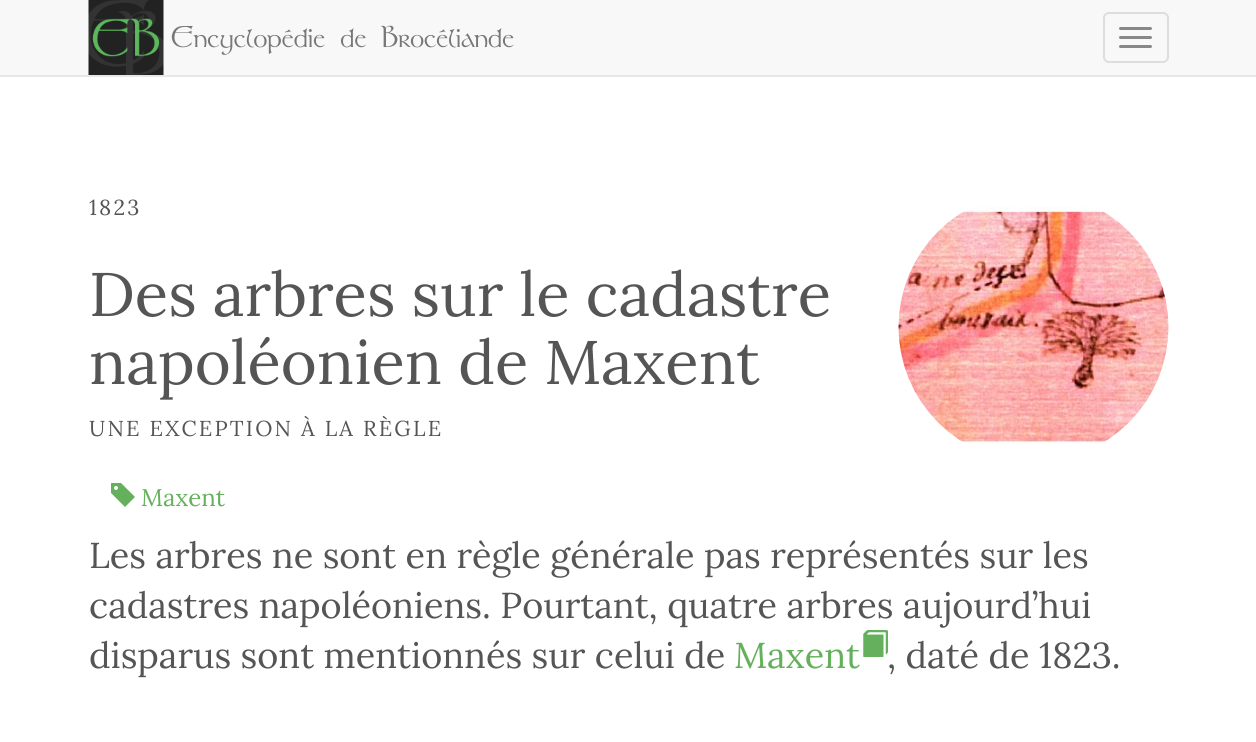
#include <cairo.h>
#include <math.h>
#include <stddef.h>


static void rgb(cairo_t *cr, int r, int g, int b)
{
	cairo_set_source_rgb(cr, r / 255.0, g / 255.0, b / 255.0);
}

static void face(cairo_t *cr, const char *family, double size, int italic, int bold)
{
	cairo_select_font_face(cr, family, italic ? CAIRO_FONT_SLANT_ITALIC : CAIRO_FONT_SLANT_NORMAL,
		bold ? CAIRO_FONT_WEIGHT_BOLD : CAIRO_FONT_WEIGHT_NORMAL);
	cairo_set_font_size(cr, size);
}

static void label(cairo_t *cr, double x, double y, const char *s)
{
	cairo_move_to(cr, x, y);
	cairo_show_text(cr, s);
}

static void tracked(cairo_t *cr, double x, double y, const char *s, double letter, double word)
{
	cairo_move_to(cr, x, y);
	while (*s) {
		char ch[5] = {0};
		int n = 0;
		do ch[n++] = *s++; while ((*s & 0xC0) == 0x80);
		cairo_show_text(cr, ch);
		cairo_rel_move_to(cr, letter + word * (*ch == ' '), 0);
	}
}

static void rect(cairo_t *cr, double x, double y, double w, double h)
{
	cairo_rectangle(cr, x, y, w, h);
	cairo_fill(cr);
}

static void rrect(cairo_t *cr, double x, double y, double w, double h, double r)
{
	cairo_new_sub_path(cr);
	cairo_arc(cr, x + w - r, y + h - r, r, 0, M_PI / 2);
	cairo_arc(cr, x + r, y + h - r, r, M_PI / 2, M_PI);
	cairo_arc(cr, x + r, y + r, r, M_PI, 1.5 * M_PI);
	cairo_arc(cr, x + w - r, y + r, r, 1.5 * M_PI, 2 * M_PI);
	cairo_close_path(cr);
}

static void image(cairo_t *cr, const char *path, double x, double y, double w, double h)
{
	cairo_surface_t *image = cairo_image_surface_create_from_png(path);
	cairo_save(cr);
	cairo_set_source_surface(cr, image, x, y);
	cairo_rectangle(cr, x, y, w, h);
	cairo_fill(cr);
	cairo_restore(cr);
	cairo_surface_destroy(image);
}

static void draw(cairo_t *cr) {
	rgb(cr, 255, 255, 255);
	cairo_paint(cr);
	rgb(cr, 248, 248, 248);
	rect(cr, 0, 0, 1256, 75);
	rgb(cr, 231, 231, 231);
	rect(cr, 0, 75, 1256, 2);
	image(cr, "image0.png", 88, 0, 76, 75);
	face(cr, "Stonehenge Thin", 30, 0, 0);
	rgb(cr, 119, 119, 119);
	label(cr, 171, 47, "Encyclopédie de Brocéliande");
	rrect(cr, 1104, 13, 64, 49, 5);
	rgb(cr, 221, 221, 221);
	cairo_stroke(cr);
	rgb(cr, 136, 136, 136);
	rrect(cr, 1119, 27, 33, 3, 1.5);
	cairo_fill(cr);
	rrect(cr, 1119, 36, 33, 3, 1.5);
	cairo_fill(cr);
	rrect(cr, 1119, 45, 33, 3, 1.5);
	cairo_fill(cr);
	face(cr, "Lora", 21.6, 0, 0);
	rgb(cr, 85, 85, 85);
	tracked(cr, 89, 215, "1823", 2.2, 0);
	image(cr, "image1.png", 898, 206, 271, 238);
	face(cr, "Lora", 61.5, 0, 0);
	label(cr, 89, 316, "Des arbres sur le cadastre");
	label(cr, 89, 384, "napoléonien de Maxent");
	face(cr, "Lora", 21.6, 0, 0);
	tracked(cr, 89, 436, "UNE EXCEPTION À LA RÈGLE", 2.2, 0);
	image(cr, "image2.png", 111, 483, 24, 24);
	face(cr, "Lora", 24, 0, 0);
	rgb(cr, 100, 176, 92);
	label(cr, 141, 506, "Maxent");
	face(cr, "Lora", 36, 0, 0);
	rgb(cr, 85, 85, 85);
	label(cr, 89, 568, "Les arbres ne sont en règle générale pas représentés sur les");
	label(cr, 89, 618, "cadastres napoléoniens. Pourtant, quatre arbres aujourd’hui");
	label(cr, 89, 668, "disparus sont mentionnés sur celui de");
	rgb(cr, 100, 176, 92);
	label(cr, 734, 668, "Maxent");
	image(cr, "image3.png", 863, 630, 25, 27);
	rgb(cr, 85, 85, 85);
	label(cr, 887, 668, ", daté de 1823.");
}

int main(void) {
	cairo_surface_t *surface = cairo_image_surface_create(CAIRO_FORMAT_RGB24, 1256, 742);
	cairo_t *cr = cairo_create(surface);
	cairo_font_options_t *options = cairo_font_options_create();
	cairo_font_options_set_hint_metrics(options, CAIRO_HINT_METRICS_OFF);
	cairo_font_options_set_hint_style(options, CAIRO_HINT_STYLE_NONE);
	cairo_set_font_options(cr, options);
	cairo_set_miter_limit(cr, 4);
	draw(cr);
	cairo_surface_write_to_png(surface, "render.png");
	cairo_font_options_destroy(options);
	cairo_destroy(cr);
	cairo_surface_destroy(surface);
	return 0;
}
